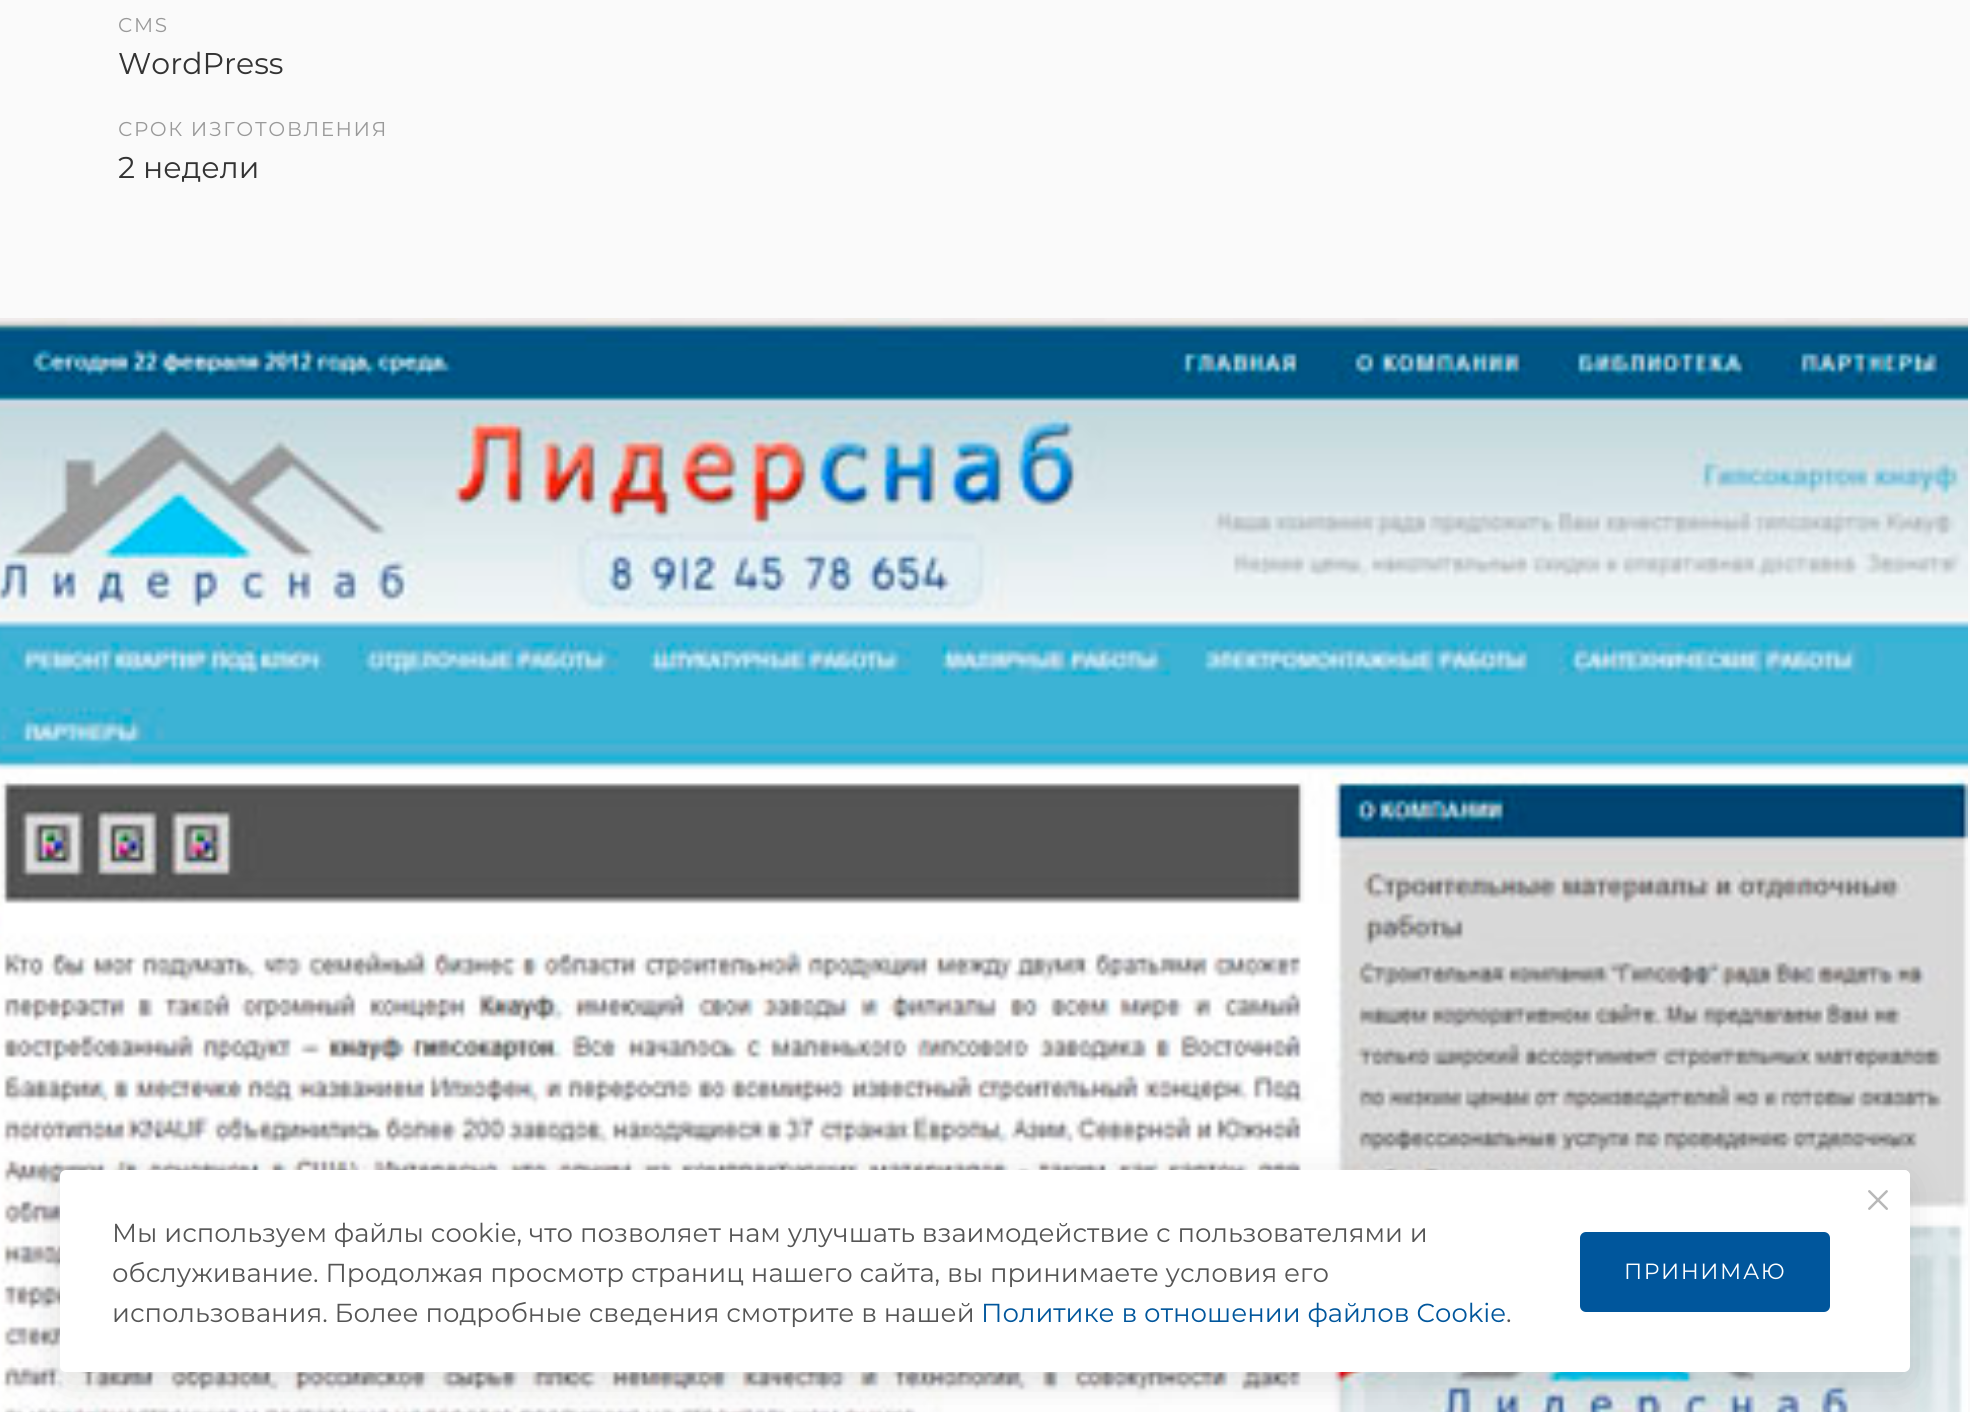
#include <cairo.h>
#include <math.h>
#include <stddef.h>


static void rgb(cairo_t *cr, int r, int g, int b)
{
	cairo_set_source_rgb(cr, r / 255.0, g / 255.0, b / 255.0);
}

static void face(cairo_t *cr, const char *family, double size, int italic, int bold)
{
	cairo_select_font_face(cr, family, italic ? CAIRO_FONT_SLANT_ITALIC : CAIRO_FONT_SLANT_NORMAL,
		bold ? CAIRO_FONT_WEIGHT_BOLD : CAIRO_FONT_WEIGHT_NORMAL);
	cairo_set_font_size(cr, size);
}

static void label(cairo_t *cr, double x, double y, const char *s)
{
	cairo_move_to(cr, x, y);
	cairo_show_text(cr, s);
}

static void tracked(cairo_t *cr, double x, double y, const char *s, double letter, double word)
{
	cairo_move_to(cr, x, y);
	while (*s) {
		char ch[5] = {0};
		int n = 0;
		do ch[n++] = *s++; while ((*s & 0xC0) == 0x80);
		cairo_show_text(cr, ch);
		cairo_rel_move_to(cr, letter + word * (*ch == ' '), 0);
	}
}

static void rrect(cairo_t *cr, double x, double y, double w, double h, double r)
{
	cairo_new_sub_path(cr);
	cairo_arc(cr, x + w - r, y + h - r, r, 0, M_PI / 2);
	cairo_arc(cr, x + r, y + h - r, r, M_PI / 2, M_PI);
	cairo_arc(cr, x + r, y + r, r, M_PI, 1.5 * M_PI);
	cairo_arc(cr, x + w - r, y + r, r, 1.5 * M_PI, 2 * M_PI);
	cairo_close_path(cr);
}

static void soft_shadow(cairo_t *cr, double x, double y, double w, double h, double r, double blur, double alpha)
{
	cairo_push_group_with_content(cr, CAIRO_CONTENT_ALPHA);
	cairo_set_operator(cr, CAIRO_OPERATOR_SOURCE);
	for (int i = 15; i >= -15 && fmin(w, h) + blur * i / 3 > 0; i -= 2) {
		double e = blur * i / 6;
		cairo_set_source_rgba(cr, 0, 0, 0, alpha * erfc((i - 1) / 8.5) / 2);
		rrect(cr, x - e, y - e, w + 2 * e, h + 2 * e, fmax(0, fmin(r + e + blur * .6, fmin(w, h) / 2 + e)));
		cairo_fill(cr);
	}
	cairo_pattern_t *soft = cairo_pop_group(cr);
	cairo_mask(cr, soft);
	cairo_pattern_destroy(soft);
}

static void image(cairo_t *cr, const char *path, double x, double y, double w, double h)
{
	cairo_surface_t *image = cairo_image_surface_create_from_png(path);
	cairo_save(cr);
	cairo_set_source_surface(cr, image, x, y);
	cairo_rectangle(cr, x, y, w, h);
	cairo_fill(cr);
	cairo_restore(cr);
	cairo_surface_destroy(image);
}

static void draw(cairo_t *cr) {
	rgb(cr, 250, 250, 250);
	cairo_paint(cr);
	face(cr, "Montserrat", 20, 0, 0);
	rgb(cr, 153, 153, 153);
	tracked(cr, 118, 32, "CMS", 1.6, 0);
	face(cr, "Montserrat", 30, 0, 0);
	rgb(cr, 51, 51, 51);
	label(cr, 118, 74, "WordPress");
	face(cr, "Montserrat", 20, 0, 0);
	rgb(cr, 153, 153, 153);
	tracked(cr, 118, 136, "СРОК ИЗГОТОВЛЕНИЯ", 1.6, 0);
	face(cr, "Montserrat", 30, 0, 0);
	rgb(cr, 51, 51, 51);
	label(cr, 118, 178, "2 недели");
	image(cr, "image0.png", 0, 318, 1968, 1094);
	rgb(cr, 0, 0, 0);
	soft_shadow(cr, 60, 1180, 1850, 202, 6, 20, 0.12);
	rgb(cr, 255, 255, 255);
	rrect(cr, 60, 1170, 1850, 202, 6);
	cairo_fill(cr);
	cairo_new_path(cr);
	cairo_move_to(cr, 1846, 1170);
	cairo_line_to(cr, 1904, 1170);
	cairo_curve_to(cr, 1907.5, 1170, 1910, 1172.5, 1910, 1176);
	cairo_line_to(cr, 1910, 1234);
	cairo_line_to(cr, 1852, 1234);
	cairo_curve_to(cr, 1848.5, 1234, 1846, 1231.5, 1846, 1228);
	cairo_close_path(cr);
	cairo_fill(cr);
	image(cr, "image1.png", 1868, 1190, 20, 20);
	face(cr, "Montserrat", 26, 0, 0);
	rgb(cr, 85, 85, 85);
	label(cr, 112, 1242, "Мы используем файлы cookie, что позволяет нам улучшать взаимодействие с пользователями и");
	label(cr, 112, 1282, "обслуживание. Продолжая просмотр страниц нашего сайта, вы принимаете условия его");
	label(cr, 112, 1322, "использования. Более подробные сведения смотрите в нашей");
	rgb(cr, 0, 86, 156);
	label(cr, 981, 1322, "Политике в отношении файлов Cookie");
	rgb(cr, 85, 85, 85);
	label(cr, 1506, 1322, ".");
	rgb(cr, 0, 86, 156);
	rrect(cr, 1581, 1233, 248, 78, 5);
	cairo_fill_preserve(cr);
	cairo_stroke(cr);
	face(cr, "Montserrat", 22, 0, 0);
	rgb(cr, 255, 255, 255);
	tracked(cr, 1624, 1279, "ПРИНИМАЮ", 1.6, 0);
}

int main(void) {
	cairo_surface_t *surface = cairo_image_surface_create(CAIRO_FORMAT_RGB24, 1970, 1412);
	cairo_t *cr = cairo_create(surface);
	cairo_font_options_t *options = cairo_font_options_create();
	cairo_font_options_set_hint_metrics(options, CAIRO_HINT_METRICS_OFF);
	cairo_font_options_set_hint_style(options, CAIRO_HINT_STYLE_NONE);
	cairo_set_font_options(cr, options);
	cairo_set_miter_limit(cr, 4);
	draw(cr);
	cairo_surface_write_to_png(surface, "render.png");
	cairo_font_options_destroy(options);
	cairo_destroy(cr);
	cairo_surface_destroy(surface);
	return 0;
}
